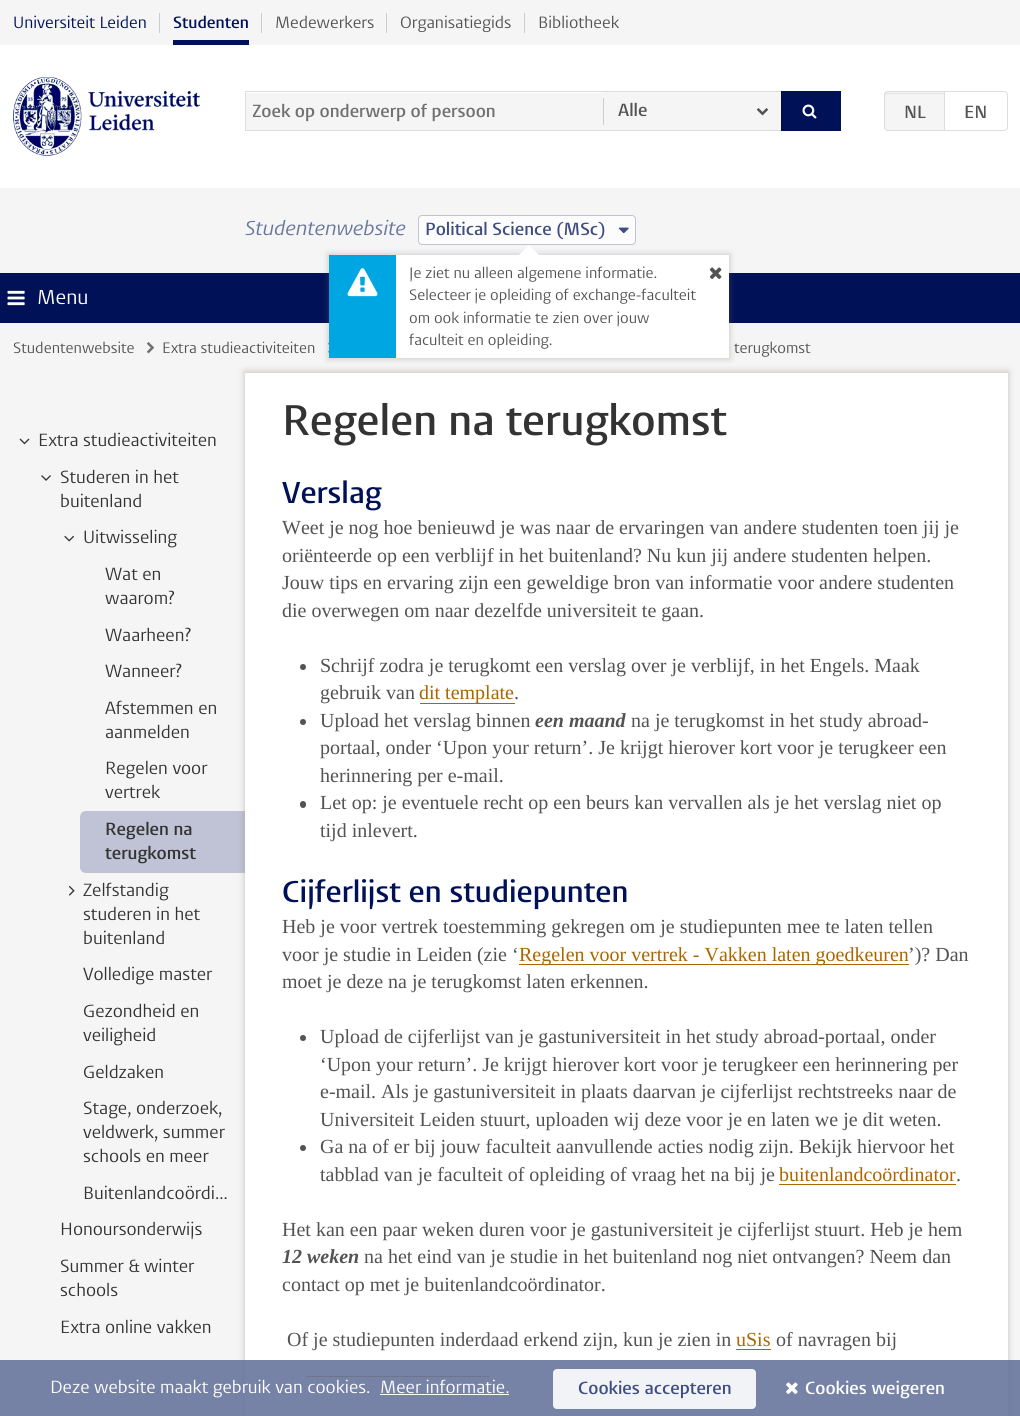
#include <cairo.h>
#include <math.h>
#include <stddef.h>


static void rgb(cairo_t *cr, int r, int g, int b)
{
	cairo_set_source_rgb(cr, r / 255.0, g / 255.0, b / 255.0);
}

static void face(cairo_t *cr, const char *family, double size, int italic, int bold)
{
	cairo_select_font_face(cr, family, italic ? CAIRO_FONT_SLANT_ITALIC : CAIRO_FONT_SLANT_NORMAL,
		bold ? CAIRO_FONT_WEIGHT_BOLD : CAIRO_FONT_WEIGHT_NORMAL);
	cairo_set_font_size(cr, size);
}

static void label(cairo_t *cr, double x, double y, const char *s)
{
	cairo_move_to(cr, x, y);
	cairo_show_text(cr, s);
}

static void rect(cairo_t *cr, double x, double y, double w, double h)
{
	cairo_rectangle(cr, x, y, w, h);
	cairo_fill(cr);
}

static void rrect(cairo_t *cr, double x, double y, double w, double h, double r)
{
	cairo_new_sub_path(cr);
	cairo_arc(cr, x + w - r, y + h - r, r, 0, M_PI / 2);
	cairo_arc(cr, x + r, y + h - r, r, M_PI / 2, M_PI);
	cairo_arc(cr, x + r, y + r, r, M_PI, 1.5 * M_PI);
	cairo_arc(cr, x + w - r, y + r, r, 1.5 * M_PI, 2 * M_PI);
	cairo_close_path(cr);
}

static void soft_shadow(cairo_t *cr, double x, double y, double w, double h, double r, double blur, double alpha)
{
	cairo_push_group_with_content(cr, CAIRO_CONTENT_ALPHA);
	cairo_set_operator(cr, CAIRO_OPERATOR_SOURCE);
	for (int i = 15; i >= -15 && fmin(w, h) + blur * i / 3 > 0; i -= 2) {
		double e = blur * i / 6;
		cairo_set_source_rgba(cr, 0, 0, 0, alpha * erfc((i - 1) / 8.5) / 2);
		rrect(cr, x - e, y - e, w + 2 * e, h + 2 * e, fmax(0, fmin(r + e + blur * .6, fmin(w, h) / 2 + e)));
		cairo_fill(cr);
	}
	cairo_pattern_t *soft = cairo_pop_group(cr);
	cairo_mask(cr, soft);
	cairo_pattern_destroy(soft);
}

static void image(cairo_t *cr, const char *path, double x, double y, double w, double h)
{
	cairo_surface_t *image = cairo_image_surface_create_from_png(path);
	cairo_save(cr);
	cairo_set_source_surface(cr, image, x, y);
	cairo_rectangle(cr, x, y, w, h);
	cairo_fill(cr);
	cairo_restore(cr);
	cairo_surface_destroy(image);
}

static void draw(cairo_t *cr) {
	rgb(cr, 245, 245, 245);
	cairo_paint(cr);
	rgb(cr, 255, 255, 255);
	rect(cr, 0, 45, 1020, 143);
	rgb(cr, 204, 204, 204);
	rect(cr, 159, 13, 1, 20);
	face(cr, "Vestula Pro", 16.25, 0, 0);
	rgb(cr, 0, 17, 88);
	label(cr, 13, 28, "Universiteit Leiden");
	rgb(cr, 204, 204, 204);
	rect(cr, 261, 13, 1, 20);
	face(cr, "Vestula Pro SemiBold", 16.25, 0, 0);
	rgb(cr, 0, 17, 88);
	label(cr, 173, 28, "Studenten");
	rect(cr, 173, 40, 76, 5);
	rgb(cr, 204, 204, 204);
	rect(cr, 386, 13, 1, 20);
	face(cr, "Vestula Pro", 16.25, 0, 0);
	rgb(cr, 83, 83, 83);
	label(cr, 275, 28, "Medewerkers");
	rgb(cr, 204, 204, 204);
	rect(cr, 524, 13, 1, 20);
	rgb(cr, 83, 83, 83);
	label(cr, 400, 28, "Organisatiegids");
	label(cr, 538, 28, "Bibliotheek");
	image(cr, "image0.png", 13, 77, 187, 79);
	rgb(cr, 245, 245, 245);
	rect(cr, 246, 93, 357, 37);
	rgb(cr, 221, 221, 221);
	rect(cr, 245, 91, 536, 1);
	rect(cr, 245, 130, 536, 1);
	rect(cr, 245, 91, 1, 40);
	cairo_save(cr);
	cairo_rectangle(cr, 253, 100, 338, 24);
	cairo_clip(cr);
	face(cr, "Vestula Pro SemiBold", 17.5, 0, 0);
	rgb(cr, 112, 112, 112);
	label(cr, 252, 117, "Zoek op onderwerp of persoon");
	cairo_restore(cr);
	rgb(cr, 245, 245, 245);
	rect(cr, 603, 92, 178, 38);
	rgb(cr, 204, 204, 204);
	rect(cr, 603, 98, 1, 27);
	face(cr, "Vestula Pro SemiBold", 17.5, 0, 0);
	rgb(cr, 83, 83, 83);
	label(cr, 618, 116, "Alle");
	image(cr, "image1.png", 756, 108, 13, 8);
	rgb(cr, 0, 17, 88);
	rect(cr, 781, 91, 60, 40);
	image(cr, "image2.png", 802, 104, 15, 15);
	rgb(cr, 245, 245, 245);
	cairo_new_path(cr);
	cairo_move_to(cr, 888, 91);
	cairo_line_to(cr, 945, 91);
	cairo_line_to(cr, 945, 131);
	cairo_line_to(cr, 888, 131);
	cairo_curve_to(cr, 886, 131, 884, 129, 884, 127);
	cairo_line_to(cr, 884, 95);
	cairo_curve_to(cr, 884, 93, 886, 91, 888, 91);
	cairo_close_path(cr);
	cairo_fill(cr);
	rgb(cr, 225, 225, 225);
	cairo_new_path(cr);
	cairo_move_to(cr, 888, 94);
	cairo_line_to(cr, 944, 94);
	cairo_line_to(cr, 944, 93);
	cairo_line_to(cr, 888, 93);
	cairo_curve_to(cr, 886, 93, 885, 94, 885, 96);
	cairo_curve_to(cr, 885, 95, 886, 94, 888, 94);
	cairo_close_path(cr);
	cairo_fill(cr);
	cairo_new_path(cr);
	cairo_move_to(cr, 888, 91.5);
	cairo_line_to(cr, 944.5, 91.5);
	cairo_line_to(cr, 944.5, 130.5);
	cairo_line_to(cr, 888, 130.5);
	cairo_curve_to(cr, 886, 130.5, 884.5, 129, 884.5, 127);
	cairo_line_to(cr, 884.5, 95);
	cairo_curve_to(cr, 884.5, 93, 886, 91.5, 888, 91.5);
	cairo_close_path(cr);
	rgb(cr, 221, 221, 221);
	cairo_set_line_width(cr, 1);
	cairo_stroke(cr);
	rgb(cr, 83, 83, 83);
	label(cr, 904, 118, "NL");
	rgb(cr, 255, 255, 255);
	cairo_new_path(cr);
	cairo_move_to(cr, 944.5, 91.5);
	cairo_line_to(cr, 1004, 91.5);
	cairo_curve_to(cr, 1006, 91.5, 1007.5, 93, 1007.5, 95);
	cairo_line_to(cr, 1007.5, 127);
	cairo_curve_to(cr, 1007.5, 129, 1006, 130.5, 1004, 130.5);
	cairo_line_to(cr, 944.5, 130.5);
	cairo_close_path(cr);
	cairo_fill_preserve(cr);
	rgb(cr, 221, 221, 221);
	cairo_stroke(cr);
	rgb(cr, 83, 83, 83);
	label(cr, 964, 118, "EN");
	rgb(cr, 0, 17, 88);
	rect(cr, 0, 273, 1020, 50);
	image(cr, "image3.png", 7, 290, 18, 16);
	face(cr, "Vestula Pro", 20, 0, 0);
	rgb(cr, 255, 255, 255);
	label(cr, 37, 304, "Menu");
	face(cr, "Vestula Pro", 20, 1, 0);
	rgb(cr, 104, 118, 156);
	label(cr, 245, 235, "Studentenwebsite");
	rgb(cr, 252, 252, 252);
	rrect(cr, 418.5, 215.5, 217, 29, 3.5);
	cairo_fill_preserve(cr);
	rgb(cr, 191, 195, 213);
	cairo_stroke(cr);
	face(cr, "Vestula Pro SemiBold", 17.5, 0, 0);
	rgb(cr, 64, 77, 130);
	label(cr, 425, 235, "Political Science (MSc)");
	image(cr, "image4.png", 618, 227, 11, 7);
	image(cr, "image8.png", 328, 342, 1, 11);
	rgb(cr, 120, 110, 100);
	soft_shadow(cr, 328, 254, 402, 105, 0, 3, 0.3);
	rgb(cr, 255, 255, 255);
	rect(cr, 396, 255, 333, 103);
	cairo_new_path(cr);
	cairo_move_to(cr, 539, 255);
	cairo_line_to(cr, 519, 255);
	cairo_line_to(cr, 529, 245);
	cairo_close_path(cr);
	cairo_fill(cr);
	rgb(cr, 0, 166, 226);
	rect(cr, 329, 255, 67, 103);
	image(cr, "image5.png", 347, 268, 31, 29);
	face(cr, "Vestula Pro", 15, 0, 0);
	rgb(cr, 83, 83, 83);
	label(cr, 409, 278, "Je ziet nu alleen algemene informatie.");
	image(cr, "image6.png", 709, 267, 13, 12);
	label(cr, 409, 300, "Selecteer je opleiding of exchange-faculteit");
	label(cr, 409, 323, "om ook informatie te zien over jouw");
	label(cr, 409, 345, "faculteit en opleiding.");
	label(cr, 13, 353, "Studentenwebsite");
	image(cr, "image7.png", 146, 342, 8, 12);
	label(cr, 162, 353, "Extra studieactiviteiten");
	label(cr, 734, 353, "terugkomst");
	image(cr, "image9.png", 19, 438, 11, 7);
	face(cr, "Vestula Pro", 17.5, 0, 0);
	rgb(cr, 51, 51, 51);
	label(cr, 38, 446, "Extra studieactiviteiten");
	image(cr, "image10.png", 41, 475, 10, 6);
	label(cr, 60, 483, "Studeren in het");
	label(cr, 60, 507, "buitenland");
	image(cr, "image11.png", 64, 535, 10, 7);
	label(cr, 83, 543, "Uitwisseling");
	label(cr, 105, 580, "Wat en");
	label(cr, 105, 604, "waarom?");
	label(cr, 105, 641, "Waarheen?");
	label(cr, 105, 677, "Wanneer?");
	label(cr, 105, 714, "Afstemmen en");
	label(cr, 105, 738, "aanmelden");
	label(cr, 105, 774, "Regelen voor");
	label(cr, 105, 798, "vertrek");
	rgb(cr, 191, 195, 213);
	cairo_new_path(cr);
	cairo_move_to(cr, 86, 811);
	cairo_line_to(cr, 245, 811);
	cairo_line_to(cr, 245, 873);
	cairo_line_to(cr, 86, 873);
	cairo_curve_to(cr, 82.5, 873, 80, 870.5, 80, 867);
	cairo_line_to(cr, 80, 817);
	cairo_curve_to(cr, 80, 813.5, 82.5, 811, 86, 811);
	cairo_close_path(cr);
	cairo_fill(cr);
	face(cr, "Vestula Pro SemiBold", 17.5, 0, 0);
	rgb(cr, 51, 51, 51);
	label(cr, 105, 835, "Regelen na");
	label(cr, 105, 859, "terugkomst");
	image(cr, "image12.png", 68, 885, 7, 11);
	face(cr, "Vestula Pro", 17.5, 0, 0);
	label(cr, 83, 896, "Zelfstandig");
	label(cr, 83, 920, "studeren in het");
	label(cr, 83, 944, "buitenland");
	label(cr, 83, 980, "Volledige master");
	label(cr, 83, 1017, "Gezondheid en");
	label(cr, 83, 1041, "veiligheid");
	label(cr, 83, 1078, "Geldzaken");
	label(cr, 83, 1114, "Stage, onderzoek,");
	label(cr, 83, 1138, "veldwerk, summer");
	label(cr, 83, 1162, "schools en meer");
	label(cr, 83, 1199, "Buitenlandcoördi…");
	label(cr, 60, 1235, "Honoursonderwijs");
	label(cr, 60, 1272, "Summer & winter");
	label(cr, 60, 1296, "schools");
	label(cr, 60, 1333, "Extra online vakken");
	rgb(cr, 120, 110, 100);
	soft_shadow(cr, 244, 371, 765, 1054, 0, 3, 0.3);
	rgb(cr, 255, 255, 255);
	rect(cr, 245, 373, 763, 1043);
	face(cr, "Vestula Pro SemiBold", 42.5, 0, 0);
	rgb(cr, 51, 51, 51);
	label(cr, 282, 435, "Regelen na terugkomst");
	face(cr, "Vestula Pro SemiBold", 30, 0, 0);
	rgb(cr, 0, 17, 88);
	label(cr, 282, 503, "Verslag");
	face(cr, "Liberation Serif", 20, 0, 0);
	rgb(cr, 83, 83, 83);
	label(cr, 282, 534, "Weet je nog hoe benieuwd je was naar de ervaringen van andere studenten toen jij je");
	label(cr, 282, 562, "oriënteerde op een verblijf in het buitenland? Nu kun jij andere studenten helpen.");
	label(cr, 282, 589, "Jouw tips en ervaring zijn een geweldige bron van informatie voor andere studenten");
	label(cr, 282, 617, "die overwegen om naar dezelfde universiteit te gaan.");
	cairo_new_path(cr);
	cairo_arc(cr, 303, 667, 3, 0, 2 * M_PI);
	cairo_fill(cr);
	label(cr, 320, 672, "Schrijf zodra je terugkomt een verslag over je verblijf, in het Engels. Maak");
	label(cr, 320, 699, "gebruik van");
	rgb(cr, 170, 102, 0);
	rect(cr, 420, 703, 95, 1);
	label(cr, 419, 699, "dit template");
	rgb(cr, 83, 83, 83);
	label(cr, 514, 699, ".");
	cairo_new_path(cr);
	cairo_arc(cr, 303, 722, 3, 0, 2 * M_PI);
	cairo_fill(cr);
	label(cr, 320, 727, "Upload het verslag binnen");
	face(cr, "Liberation Serif", 20, 1, 1);
	label(cr, 535, 727, "een maand");
	face(cr, "Liberation Serif", 20, 0, 0);
	label(cr, 631, 727, "na je terugkomst in het study abroad-");
	label(cr, 320, 754, "portaal, onder ‘Upon your return’. Je krijgt hierover kort voor je terugkeer een");
	label(cr, 320, 782, "herinnering per e-mail.");
	rrect(cr, 300, 801, 6, 7, 3);
	cairo_fill(cr);
	label(cr, 320, 809, "Let op: je eventuele recht op een beurs kan vervallen als je het verslag niet op");
	label(cr, 320, 837, "tijd inlevert.");
	face(cr, "Vestula Pro SemiBold", 30, 0, 0);
	rgb(cr, 0, 17, 88);
	label(cr, 282, 902, "Cijferlijst en studiepunten");
	face(cr, "Liberation Serif", 20, 0, 0);
	rgb(cr, 83, 83, 83);
	label(cr, 282, 933, "Heb je voor vertrek toestemming gekregen om je studiepunten mee te laten tellen");
	label(cr, 282, 961, "voor je studie in Leiden (zie ‘");
	rgb(cr, 170, 102, 0);
	rect(cr, 519, 964, 390, 1);
	label(cr, 519, 961, "Regelen voor vertrek - Vakken laten goedkeuren");
	rgb(cr, 83, 83, 83);
	label(cr, 908, 961, "’)? Dan");
	label(cr, 282, 988, "moet je deze na je terugkomst laten erkennen.");
	cairo_new_path(cr);
	cairo_arc(cr, 303, 1038, 3, 0, 2 * M_PI);
	cairo_fill(cr);
	label(cr, 320, 1043, "Upload de cijferlijst van je gastuniversiteit in het study abroad-portaal, onder");
	label(cr, 320, 1071, "‘Upon your return’. Je krijgt hierover kort voor je terugkeer een herinnering per");
	label(cr, 320, 1098, "e-mail. Als je gastuniversiteit in plaats daarvan je cijferlijst rechtstreeks naar de");
	label(cr, 320, 1126, "Universiteit Leiden stuurt, uploaden wij deze voor je en laten we je dit weten.");
	cairo_new_path(cr);
	cairo_arc(cr, 303, 1148, 3, 0, 2 * M_PI);
	cairo_fill(cr);
	label(cr, 320, 1153, "Ga na of er bij jouw faculteit aanvullende acties nodig zijn. Bekijk hiervoor het");
	label(cr, 320, 1181, "tabblad van je faculteit of opleiding of vraag het na bij je");
	rgb(cr, 170, 102, 0);
	label(cr, 779, 1181, "buitenlandcoördinator");
	rgb(cr, 83, 83, 83);
	label(cr, 956, 1181, ".");
	rgb(cr, 170, 102, 0);
	rect(cr, 779, 1184, 177, 1);
	rgb(cr, 83, 83, 83);
	label(cr, 282, 1236, "Het kan een paar weken duren voor je gastuniversiteit je cijferlijst stuurt. Heb je hem");
	face(cr, "Liberation Serif", 20, 1, 1);
	label(cr, 282, 1263, "12 weken");
	face(cr, "Liberation Serif", 20, 0, 0);
	label(cr, 364, 1263, "na het eind van je studie in het buitenland nog niet ontvangen? Neem dan");
	label(cr, 282, 1291, "contact op met je buitenlandcoördinator.");
	label(cr, 287, 1346, "Of je studiepunten inderdaad erkend zijn, kun je zien in");
	rgb(cr, 170, 102, 0);
	rect(cr, 306, 1376, 183, 1);
	label(cr, 736, 1346, "uSis");
	rect(cr, 736, 1349, 35, 1);
	rgb(cr, 83, 83, 83);
	label(cr, 776, 1346, "of navragen bij");
	cairo_set_source_rgba(cr, 0.408, 0.463, 0.612, 0.9);
	rect(cr, 0, 1360, 1020, 56);
	face(cr, "Vestula Pro", 17.5, 0, 0);
	rgb(cr, 255, 255, 255);
	label(cr, 50, 1393, "Deze website maakt gebruik van cookies.");
	label(cr, 380, 1393, "Meer informatie.");
	rect(cr, 380, 1394, 129, 1);
	rgb(cr, 241, 243, 246);
	rrect(cr, 553, 1369, 203, 40, 4);
	cairo_fill(cr);
	face(cr, "Vestula Pro SemiBold", 17.5, 0, 0);
	rgb(cr, 64, 77, 130);
	label(cr, 578, 1394, "Cookies accepteren");
	image(cr, "image13.png", 786, 1382, 12, 12);
	rgb(cr, 255, 255, 255);
	label(cr, 805, 1394, "Cookies weigeren");
}

int main(void) {
	cairo_surface_t *surface = cairo_image_surface_create(CAIRO_FORMAT_RGB24, 1020, 1416);
	cairo_t *cr = cairo_create(surface);
	cairo_font_options_t *options = cairo_font_options_create();
	cairo_font_options_set_hint_metrics(options, CAIRO_HINT_METRICS_OFF);
	cairo_font_options_set_hint_style(options, CAIRO_HINT_STYLE_NONE);
	cairo_set_font_options(cr, options);
	cairo_set_miter_limit(cr, 4);
	draw(cr);
	cairo_surface_write_to_png(surface, "render.png");
	cairo_font_options_destroy(options);
	cairo_destroy(cr);
	cairo_surface_destroy(surface);
	return 0;
}
